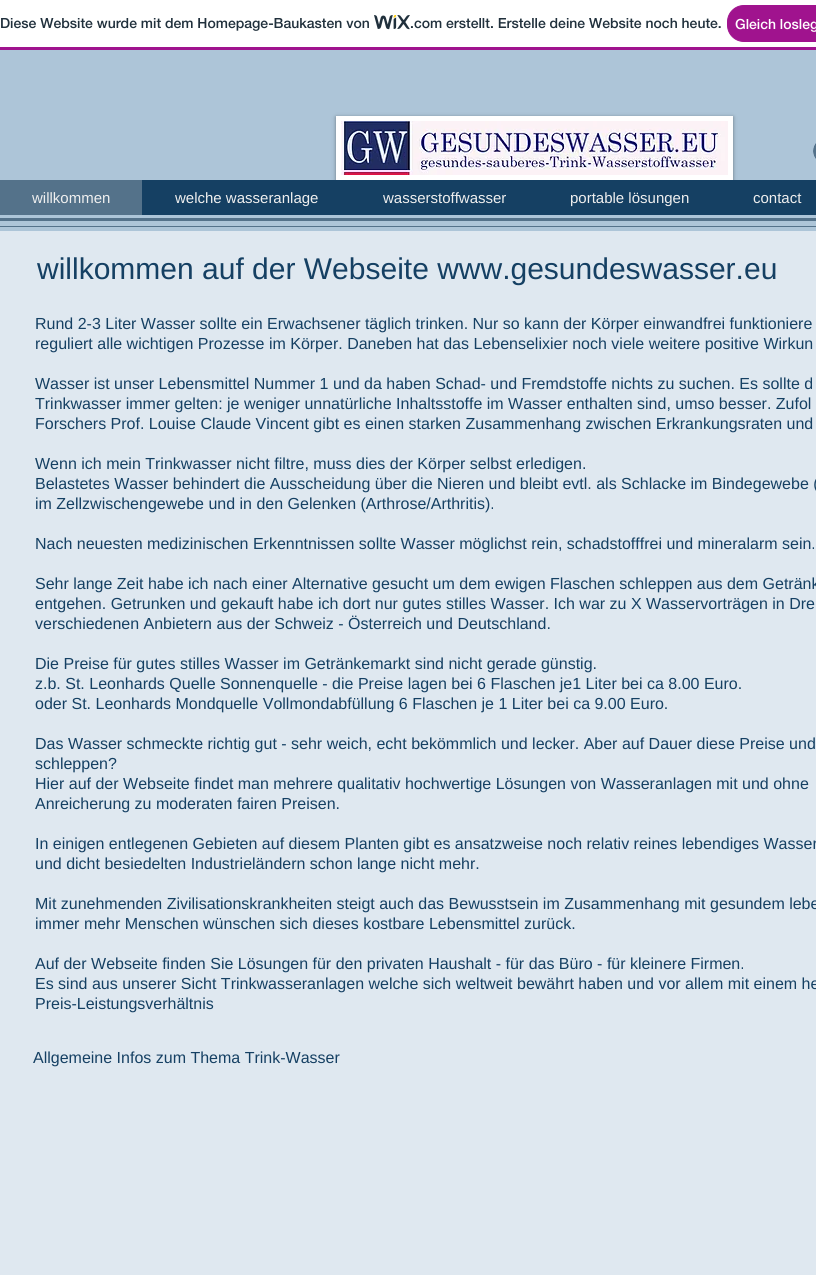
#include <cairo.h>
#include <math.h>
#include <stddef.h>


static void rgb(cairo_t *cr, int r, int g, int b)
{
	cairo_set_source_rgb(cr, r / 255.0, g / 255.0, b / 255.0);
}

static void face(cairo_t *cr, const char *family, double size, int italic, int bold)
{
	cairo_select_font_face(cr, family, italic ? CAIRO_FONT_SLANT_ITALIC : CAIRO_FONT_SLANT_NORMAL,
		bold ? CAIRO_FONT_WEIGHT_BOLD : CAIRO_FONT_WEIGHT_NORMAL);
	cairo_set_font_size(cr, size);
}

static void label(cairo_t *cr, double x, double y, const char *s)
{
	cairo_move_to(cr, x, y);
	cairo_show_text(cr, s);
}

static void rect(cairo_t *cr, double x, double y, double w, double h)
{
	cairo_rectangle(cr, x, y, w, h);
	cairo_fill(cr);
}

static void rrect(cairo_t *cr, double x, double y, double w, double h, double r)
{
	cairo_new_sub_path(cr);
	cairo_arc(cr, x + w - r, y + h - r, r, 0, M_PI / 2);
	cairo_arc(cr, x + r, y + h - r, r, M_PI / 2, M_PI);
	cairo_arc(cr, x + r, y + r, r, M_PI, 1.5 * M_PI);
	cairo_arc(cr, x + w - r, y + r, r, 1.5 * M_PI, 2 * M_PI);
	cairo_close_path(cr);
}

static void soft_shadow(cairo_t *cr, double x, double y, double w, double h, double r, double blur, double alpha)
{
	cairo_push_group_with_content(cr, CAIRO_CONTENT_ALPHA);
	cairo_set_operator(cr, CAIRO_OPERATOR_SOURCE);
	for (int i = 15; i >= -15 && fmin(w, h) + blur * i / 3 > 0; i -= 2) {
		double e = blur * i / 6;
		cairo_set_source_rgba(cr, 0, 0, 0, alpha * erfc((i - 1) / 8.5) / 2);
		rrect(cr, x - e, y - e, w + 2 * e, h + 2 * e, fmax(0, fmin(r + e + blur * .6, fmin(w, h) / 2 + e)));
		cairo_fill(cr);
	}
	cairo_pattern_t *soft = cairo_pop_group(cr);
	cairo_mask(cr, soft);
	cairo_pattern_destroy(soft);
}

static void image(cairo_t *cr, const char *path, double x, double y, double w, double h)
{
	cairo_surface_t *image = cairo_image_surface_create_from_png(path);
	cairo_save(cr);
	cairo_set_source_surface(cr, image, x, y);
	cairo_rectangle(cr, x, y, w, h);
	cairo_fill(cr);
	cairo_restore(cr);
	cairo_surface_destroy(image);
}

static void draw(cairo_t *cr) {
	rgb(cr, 173, 197, 216);
	cairo_paint(cr);
	rgb(cr, 255, 255, 255);
	rect(cr, 0, 0, 816, 47);
	rgb(cr, 160, 19, 142);
	rect(cr, 0, 47, 816, 3);
	face(cr, "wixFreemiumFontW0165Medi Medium", 14, 0, 0);
	rgb(cr, 32, 48, 60);
	label(cr, 0, 28, "Diese Website wurde mit dem Homepage-Baukasten von");
	image(cr, "image0.png", 374, 15, 36, 15);
	label(cr, 410, 28, ".com erstellt. Erstelle deine Website noch heute.");
	rgb(cr, 160, 19, 142);
	rrect(cr, 727.5, 5.5, 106, 36, 16.5);
	cairo_fill_preserve(cr);
	cairo_set_line_width(cr, 1);
	cairo_stroke(cr);
	rgb(cr, 255, 255, 255);
	label(cr, 735, 29, "Gleich losleg");
	rgb(cr, 0, 0, 0);
	soft_shadow(cr, 336, 117, 397, 64, 0, 2, 0.4);
	rgb(cr, 255, 255, 255);
	rect(cr, 336, 116, 397, 64);
	image(cr, "image1.png", 341, 121, 387, 54);
	image(cr, "image2.png", 813, 143, 3, 16);
	rgb(cr, 21, 64, 99);
	rect(cr, 142, 180, 674, 35);
	rgb(cr, 84, 114, 138);
	rect(cr, 0, 180, 142, 35);
	face(cr, "Liberation Sans", 15, 0, 0);
	rgb(cr, 239, 239, 239);
	label(cr, 32, 203, "willkommen");
	label(cr, 175, 203, "welche wasseranlage");
	label(cr, 383, 203, "wasserstoffwasser");
	label(cr, 570, 203, "portable lösungen");
	label(cr, 753, 203, "contact");
	rgb(cr, 84, 114, 138);
	rect(cr, 0, 218, 816, 3);
	rect(cr, 0, 226, 816, 1);
	rgb(cr, 223, 232, 240);
	rect(cr, 0, 231, 816, 1044);
	face(cr, "Liberation Sans", 30, 0, 0);
	rgb(cr, 21, 64, 99);
	label(cr, 37, 279, "willkommen auf der Webseite www.gesundeswasser.eu");
	face(cr, "Liberation Sans", 16, 0, 0);
	label(cr, 35, 329, "Rund 2-3 Liter Wasser sollte ein Erwachsener täglich trinken. Nur so kann der Körper einwandfrei funktioniere");
	label(cr, 35, 349, "reguliert alle wichtigen Prozesse im Körper. Daneben hat das Lebenselixier noch viele weitere positive Wirkun");
	label(cr, 35, 389, "Wasser ist unser Lebensmittel Nummer 1 und da haben Schad- und Fremdstoffe nichts zu suchen. Es sollte d");
	label(cr, 35, 409, "Trinkwasser immer gelten: je weniger unnatürliche Inhaltsstoffe im Wasser enthalten sind, umso besser. Zufol");
	label(cr, 35, 429, "Forschers Prof. Louise Claude Vincent gibt es einen starken Zusammenhang zwischen Erkrankungsraten und");
	label(cr, 35, 469, "Wenn ich mein Trinkwasser nicht filtre, muss dies der Körper selbst erledigen.");
	label(cr, 35, 489, "Belastetes Wasser behindert die Ausscheidung über die Nieren und bleibt evtl. als Schlacke im Bindegewebe (");
	label(cr, 35, 509, "im Zellzwischengewebe und in den Gelenken (Arthrose/Arthritis).");
	label(cr, 35, 549, "Nach neuesten medizinischen Erkenntnissen sollte Wasser möglichst rein, schadstofffrei und mineralarm sein.");
	label(cr, 35, 589, "Sehr lange Zeit habe ich nach einer Alternative gesucht um dem ewigen Flaschen schleppen aus dem Getränk");
	label(cr, 35, 609, "entgehen. Getrunken und gekauft habe ich dort nur gutes stilles Wasser. Ich war zu X Wasservorträgen in Dre");
	label(cr, 35, 629, "verschiedenen Anbietern aus der Schweiz - Österreich und Deutschland.");
	label(cr, 35, 669, "Die Preise für gutes stilles Wasser im Getränkemarkt sind nicht gerade günstig.");
	label(cr, 35, 689, "z.b. St. Leonhards Quelle Sonnenquelle - die Preise lagen bei 6 Flaschen je1 Liter bei ca 8.00 Euro.");
	label(cr, 35, 709, "oder St. Leonhards Mondquelle Vollmondabfüllung 6 Flaschen je 1 Liter bei ca 9.00 Euro.");
	label(cr, 35, 749, "Das Wasser schmeckte richtig gut - sehr weich, echt bekömmlich und lecker. Aber auf Dauer diese Preise und");
	label(cr, 35, 769, "schleppen?");
	label(cr, 35, 789, "Hier auf der Webseite findet man mehrere qualitativ hochwertige Lösungen von Wasseranlagen mit und ohne");
	label(cr, 35, 809, "Anreicherung zu moderaten fairen Preisen.");
	label(cr, 35, 849, "In einigen entlegenen Gebieten auf diesem Planten gibt es ansatzweise noch relativ reines lebendiges Wasser");
	label(cr, 35, 869, "und dicht besiedelten Industrieländern schon lange nicht mehr.");
	label(cr, 35, 909, "Mit zunehmenden Zivilisationskrankheiten steigt auch das Bewusstsein im Zusammenhang mit gesundem lebe");
	label(cr, 35, 929, "immer mehr Menschen wünschen sich dieses kostbare Lebensmittel zurück.");
	label(cr, 35, 969, "Auf der Webseite finden Sie Lösungen für den privaten Haushalt - für das Büro - für kleinere Firmen.");
	label(cr, 35, 989, "Es sind aus unserer Sicht Trinkwasseranlagen welche sich weltweit bewährt haben und vor allem mit einem he");
	label(cr, 35, 1009, "Preis-Leistungsverhältnis");
	label(cr, 33, 1063, "Allgemeine Infos zum Thema Trink-Wasser");
}

int main(void) {
	cairo_surface_t *surface = cairo_image_surface_create(CAIRO_FORMAT_RGB24, 816, 1275);
	cairo_t *cr = cairo_create(surface);
	cairo_font_options_t *options = cairo_font_options_create();
	cairo_font_options_set_hint_metrics(options, CAIRO_HINT_METRICS_OFF);
	cairo_font_options_set_hint_style(options, CAIRO_HINT_STYLE_NONE);
	cairo_set_font_options(cr, options);
	cairo_set_miter_limit(cr, 4);
	draw(cr);
	cairo_surface_write_to_png(surface, "render.png");
	cairo_font_options_destroy(options);
	cairo_destroy(cr);
	cairo_surface_destroy(surface);
	return 0;
}
